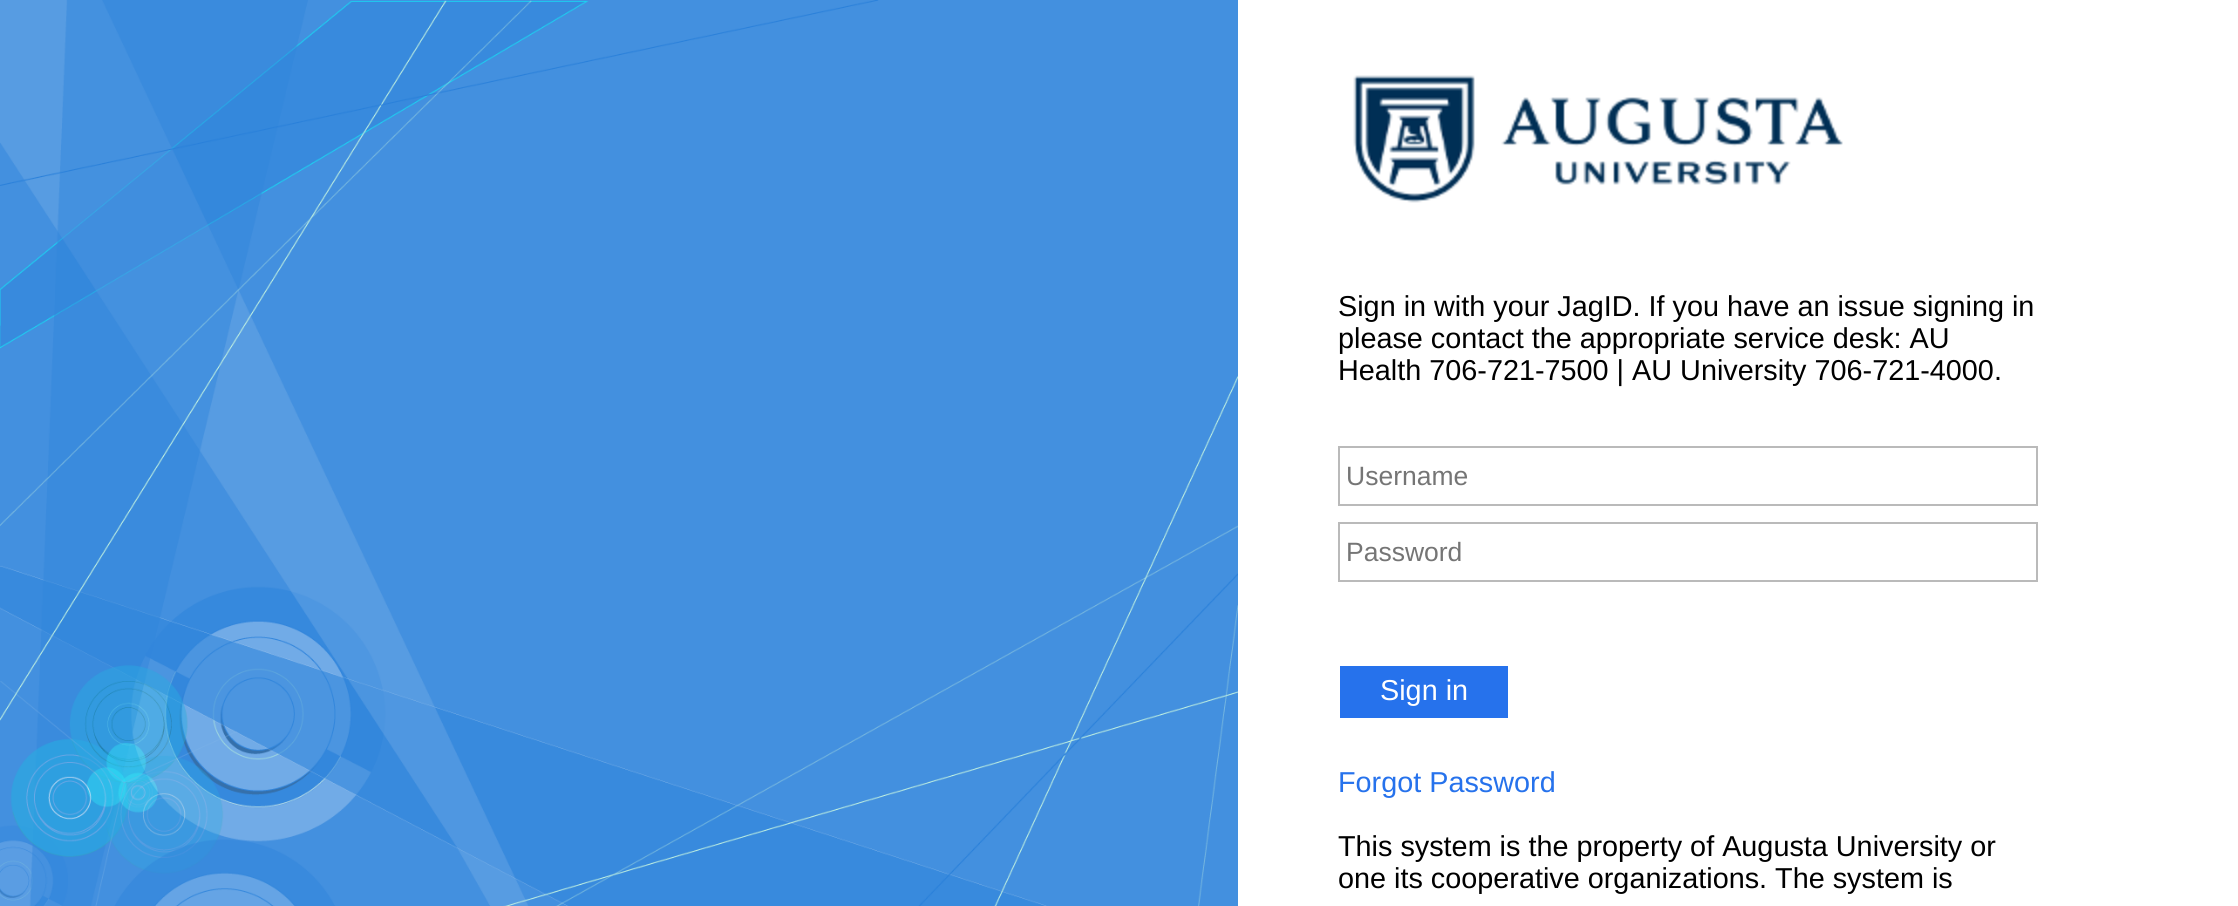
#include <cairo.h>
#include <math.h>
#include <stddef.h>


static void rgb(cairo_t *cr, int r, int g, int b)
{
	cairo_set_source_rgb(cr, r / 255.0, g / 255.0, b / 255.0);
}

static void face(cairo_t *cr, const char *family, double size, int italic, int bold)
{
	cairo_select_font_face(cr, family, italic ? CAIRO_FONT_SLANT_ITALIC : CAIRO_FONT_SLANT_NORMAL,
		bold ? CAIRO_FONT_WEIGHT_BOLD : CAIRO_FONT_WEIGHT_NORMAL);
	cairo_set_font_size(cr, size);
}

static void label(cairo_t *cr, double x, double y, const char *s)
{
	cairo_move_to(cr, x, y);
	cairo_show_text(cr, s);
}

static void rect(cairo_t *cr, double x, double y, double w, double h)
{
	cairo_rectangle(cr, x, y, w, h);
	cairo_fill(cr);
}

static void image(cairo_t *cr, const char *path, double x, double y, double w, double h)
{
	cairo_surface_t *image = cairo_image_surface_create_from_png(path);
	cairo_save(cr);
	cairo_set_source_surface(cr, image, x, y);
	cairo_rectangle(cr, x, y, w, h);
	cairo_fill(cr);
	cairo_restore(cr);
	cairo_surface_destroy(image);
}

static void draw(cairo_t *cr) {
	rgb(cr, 255, 255, 255);
	cairo_paint(cr);
	image(cr, "image0.png", 0, 0, 1238, 906);
	image(cr, "image1.png", 1353, 75, 490, 128);
	face(cr, "Liberation Sans", 28.8, 0, 0);
	rgb(cr, 0, 0, 0);
	label(cr, 1338, 316, "Sign in with your JagID. If you have an issue signing in");
	label(cr, 1338, 348, "please contact the appropriate service desk: AU");
	label(cr, 1338, 380, "Health 706-721-7500 | AU University 706-721-4000.");
	cairo_rectangle(cr, 1339, 447, 698, 58);
	rgb(cr, 186, 186, 186);
	cairo_stroke(cr);
	face(cr, "Liberation Sans", 26.5, 0, 0);
	rgb(cr, 117, 117, 117);
	label(cr, 1346, 485, "Username");
	cairo_rectangle(cr, 1339, 523, 698, 58);
	rgb(cr, 186, 186, 186);
	cairo_stroke(cr);
	rgb(cr, 117, 117, 117);
	label(cr, 1346, 561, "Password");
	rgb(cr, 38, 114, 236);
	rect(cr, 1340, 666, 168, 52);
	face(cr, "Liberation Sans", 28.8, 0, 0);
	rgb(cr, 255, 255, 255);
	label(cr, 1380, 700, "Sign in");
	rgb(cr, 38, 114, 236);
	label(cr, 1338, 792, "Forgot Password");
	rgb(cr, 0, 0, 0);
	label(cr, 1338, 856, "This system is the property of Augusta University or");
	label(cr, 1338, 888, "one its cooperative organizations. The system is");
}

int main(void) {
	cairo_surface_t *surface = cairo_image_surface_create(CAIRO_FORMAT_RGB24, 2238, 906);
	cairo_t *cr = cairo_create(surface);
	cairo_font_options_t *options = cairo_font_options_create();
	cairo_font_options_set_hint_metrics(options, CAIRO_HINT_METRICS_OFF);
	cairo_font_options_set_hint_style(options, CAIRO_HINT_STYLE_NONE);
	cairo_set_font_options(cr, options);
	cairo_set_miter_limit(cr, 4);
	draw(cr);
	cairo_surface_write_to_png(surface, "render.png");
	cairo_font_options_destroy(options);
	cairo_destroy(cr);
	cairo_surface_destroy(surface);
	return 0;
}
